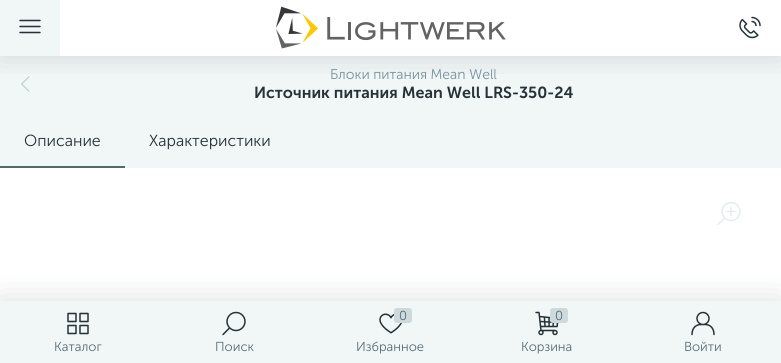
#include <cairo.h>
#include <math.h>
#include <stddef.h>


static void rgb(cairo_t *cr, int r, int g, int b)
{
	cairo_set_source_rgb(cr, r / 255.0, g / 255.0, b / 255.0);
}

static void face(cairo_t *cr, const char *family, double size, int italic, int bold)
{
	cairo_select_font_face(cr, family, italic ? CAIRO_FONT_SLANT_ITALIC : CAIRO_FONT_SLANT_NORMAL,
		bold ? CAIRO_FONT_WEIGHT_BOLD : CAIRO_FONT_WEIGHT_NORMAL);
	cairo_set_font_size(cr, size);
}

static void label(cairo_t *cr, double x, double y, const char *s)
{
	cairo_move_to(cr, x, y);
	cairo_show_text(cr, s);
}

static void rect(cairo_t *cr, double x, double y, double w, double h)
{
	cairo_rectangle(cr, x, y, w, h);
	cairo_fill(cr);
}

static void rrect(cairo_t *cr, double x, double y, double w, double h, double r)
{
	cairo_new_sub_path(cr);
	cairo_arc(cr, x + w - r, y + h - r, r, 0, M_PI / 2);
	cairo_arc(cr, x + r, y + h - r, r, M_PI / 2, M_PI);
	cairo_arc(cr, x + r, y + r, r, M_PI, 1.5 * M_PI);
	cairo_arc(cr, x + w - r, y + r, r, 1.5 * M_PI, 2 * M_PI);
	cairo_close_path(cr);
}

static void soft_shadow(cairo_t *cr, double x, double y, double w, double h, double r, double blur, double alpha)
{
	cairo_push_group_with_content(cr, CAIRO_CONTENT_ALPHA);
	cairo_set_operator(cr, CAIRO_OPERATOR_SOURCE);
	for (int i = 15; i >= -15 && fmin(w, h) + blur * i / 3 > 0; i -= 2) {
		double e = blur * i / 6;
		cairo_set_source_rgba(cr, 0, 0, 0, alpha * erfc((i - 1) / 8.5) / 2);
		rrect(cr, x - e, y - e, w + 2 * e, h + 2 * e, fmax(0, fmin(r + e + blur * .6, fmin(w, h) / 2 + e)));
		cairo_fill(cr);
	}
	cairo_pattern_t *soft = cairo_pop_group(cr);
	cairo_mask(cr, soft);
	cairo_pattern_destroy(soft);
}

static void image(cairo_t *cr, const char *path, double x, double y, double w, double h)
{
	cairo_surface_t *image = cairo_image_surface_create_from_png(path);
	cairo_save(cr);
	cairo_set_source_surface(cr, image, x, y);
	cairo_rectangle(cr, x, y, w, h);
	cairo_fill(cr);
	cairo_restore(cr);
	cairo_surface_destroy(image);
}

static void draw(cairo_t *cr) {
	rgb(cr, 255, 255, 255);
	cairo_paint(cr);
	rgb(cr, 241, 246, 247);
	rect(cr, 0, 56, 781, 112);
	image(cr, "image0.png", 21, 76, 9, 16);
	face(cr, "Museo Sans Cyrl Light", 14, 0, 0);
	rgb(cr, 120, 144, 156);
	label(cr, 330, 79, "Блоки питания Mean Well");
	face(cr, "Museo Sans Cyrl SemiBold", 16, 0, 0);
	rgb(cr, 38, 50, 56);
	label(cr, 254, 98, "Источник питания Mean Well LRS-350-24");
	face(cr, "Museo Sans Cyrl Light", 16, 0, 0);
	label(cr, 24, 146, "Описание");
	rgb(cr, 85, 104, 110);
	rect(cr, 0, 166, 125, 2);
	rgb(cr, 38, 50, 56);
	label(cr, 149, 146, "Характеристики");
	image(cr, "image1.png", 717, 201, 24, 24);
	cairo_save(cr);
	cairo_rectangle(cr, 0, 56, 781, 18);
	cairo_clip(cr);
	rgb(cr, 38, 50, 56);
	soft_shadow(cr, 0, 0, 781, 56, 0, 16, 0.16);
	cairo_restore(cr);
	rgb(cr, 241, 246, 247);
	rect(cr, 0, 0, 60, 56);
	image(cr, "image2.png", 19, 19, 22, 15);
	image(cr, "image3.png", 276, 6, 230, 43);
	image(cr, "image4.png", 739, 16, 22, 23);
	rgb(cr, 38, 50, 56);
	soft_shadow(cr, 0, 301, 781, 62, 0, 16, 0.16);
	rgb(cr, 241, 246, 247);
	rect(cr, 0, 301, 781, 62);
	image(cr, "image5.png", 67, 312, 22, 23);
	face(cr, "Museo Sans Cyrl Light", 13, 0, 0);
	rgb(cr, 86, 107, 117);
	label(cr, 54, 351, "Каталог");
	image(cr, "image6.png", 222, 311, 24, 25);
	label(cr, 215, 351, "Поиск");
	image(cr, "image7.png", 379, 313, 23, 21);
	rgb(cr, 206, 217, 219);
	rrect(cr, 394, 308, 18, 15, 3);
	cairo_fill(cr);
	rgb(cr, 86, 107, 117);
	label(cr, 399, 320, "0");
	label(cr, 356, 351, "Избранное");
	image(cr, "image8.png", 535, 311, 24, 25);
	rgb(cr, 206, 217, 219);
	rrect(cr, 550, 308, 18, 15, 3);
	cairo_fill(cr);
	rgb(cr, 86, 107, 117);
	label(cr, 555, 320, "0");
	label(cr, 521, 351, "Корзина");
	image(cr, "image9.png", 691, 311, 24, 25);
	label(cr, 684, 351, "Войти");
}

int main(void) {
	cairo_surface_t *surface = cairo_image_surface_create(CAIRO_FORMAT_RGB24, 781, 363);
	cairo_t *cr = cairo_create(surface);
	cairo_font_options_t *options = cairo_font_options_create();
	cairo_font_options_set_hint_metrics(options, CAIRO_HINT_METRICS_OFF);
	cairo_font_options_set_hint_style(options, CAIRO_HINT_STYLE_NONE);
	cairo_set_font_options(cr, options);
	cairo_set_miter_limit(cr, 4);
	draw(cr);
	cairo_surface_write_to_png(surface, "render.png");
	cairo_font_options_destroy(options);
	cairo_destroy(cr);
	cairo_surface_destroy(surface);
	return 0;
}
